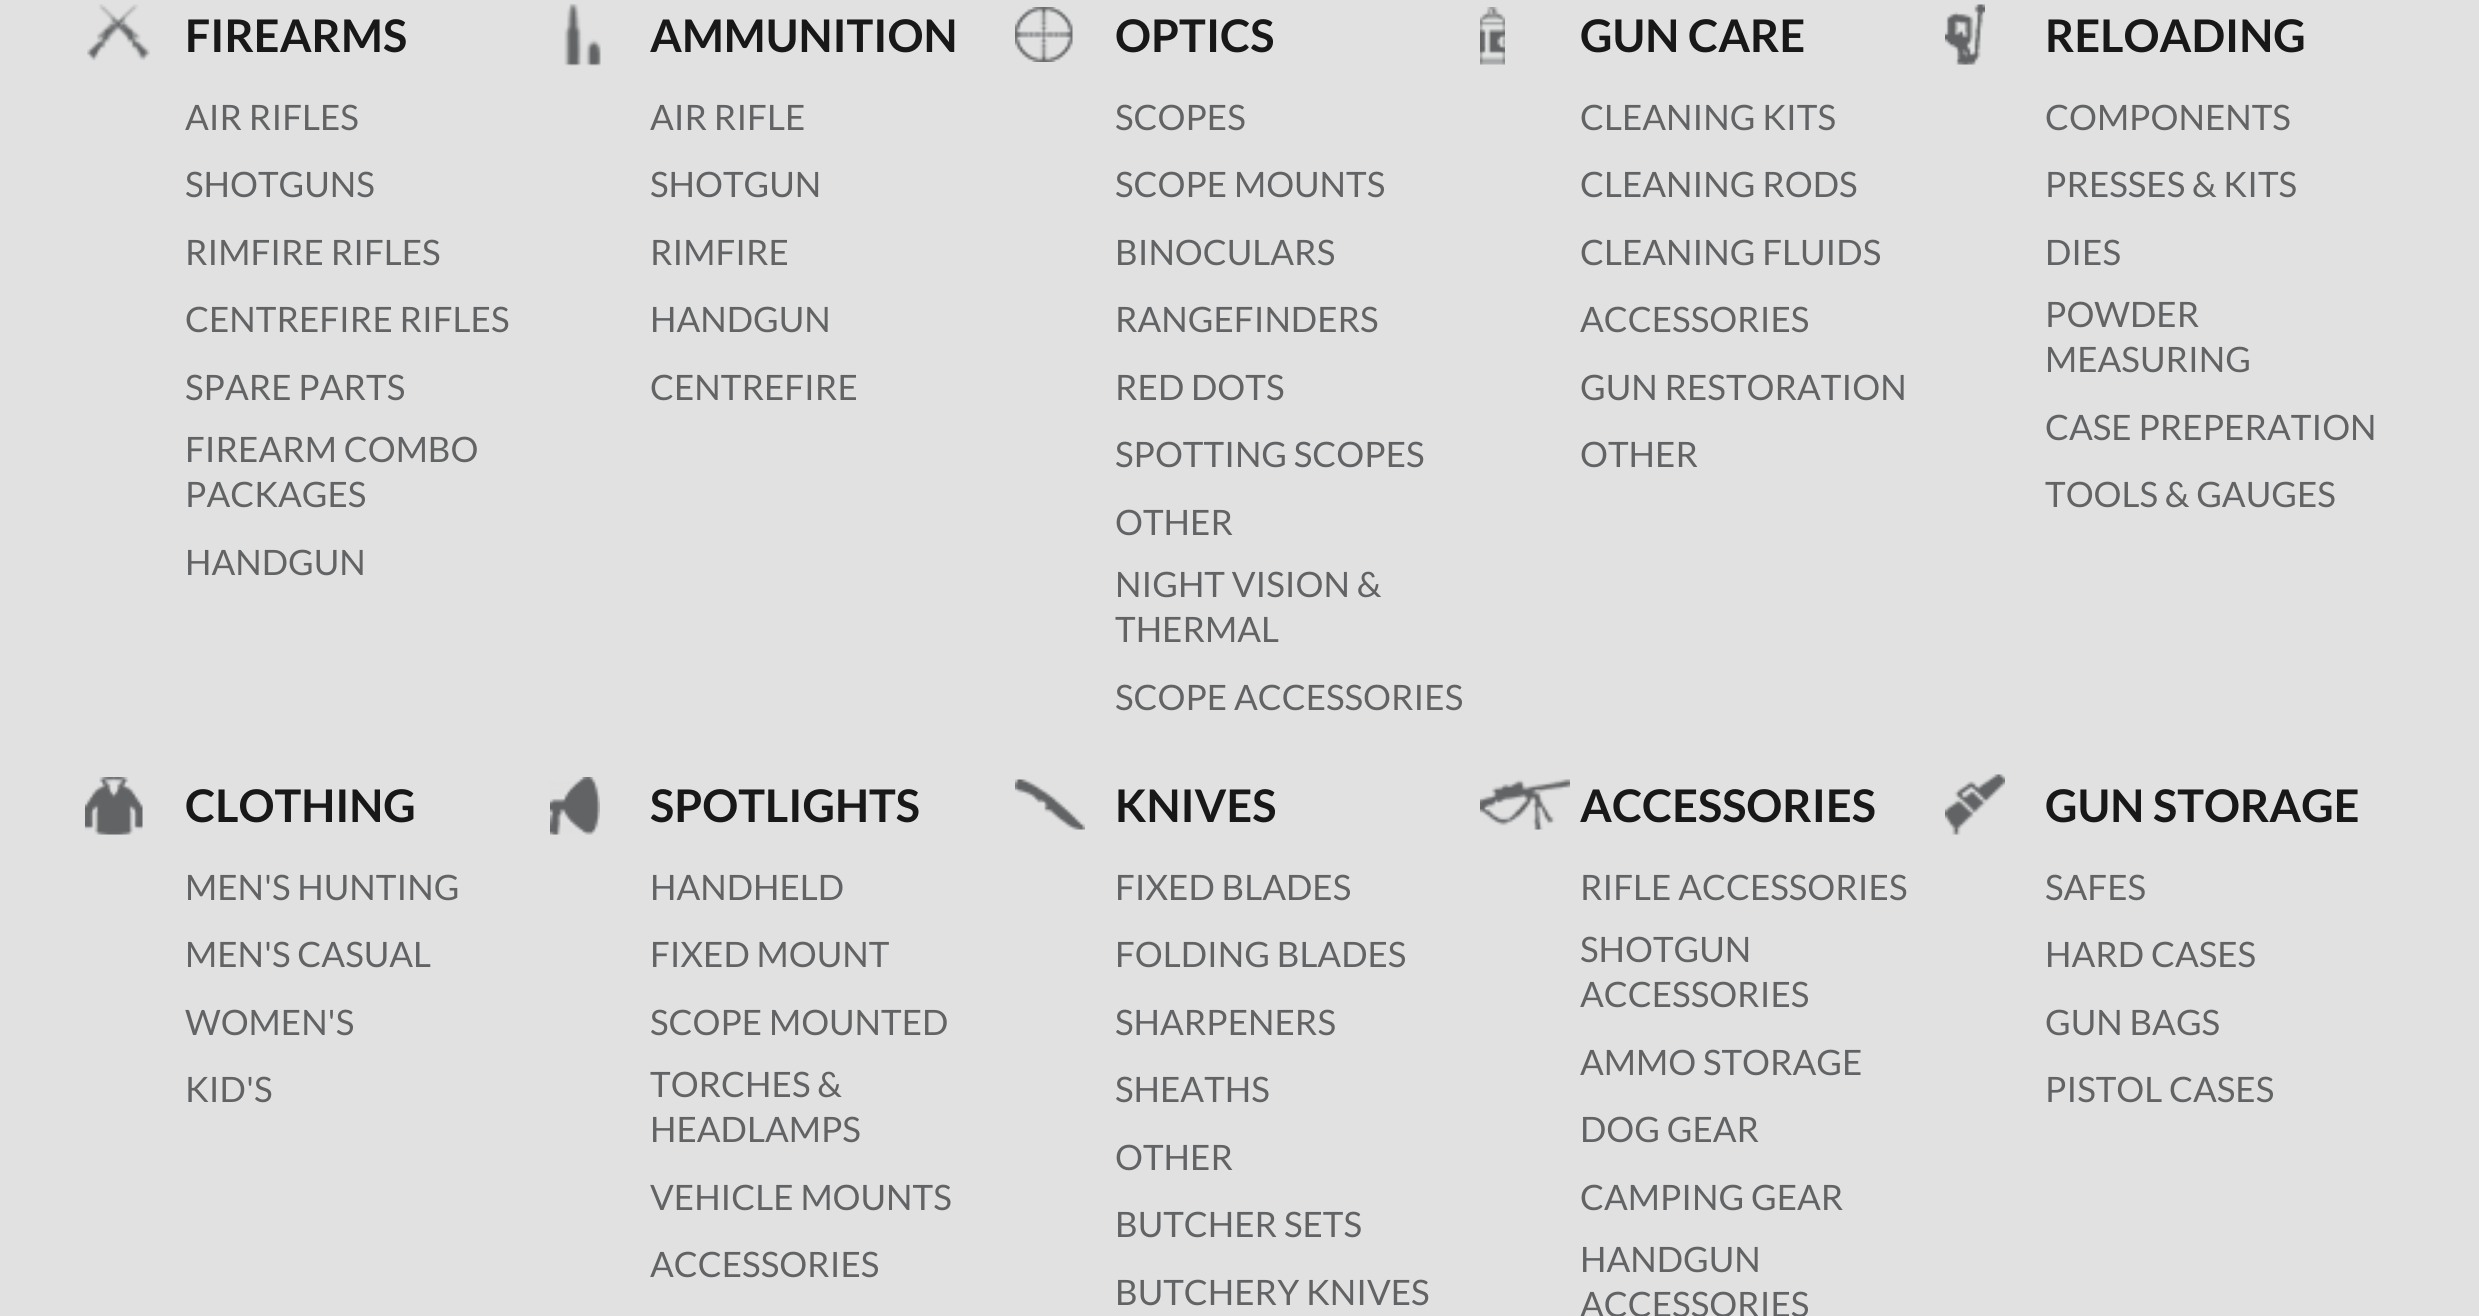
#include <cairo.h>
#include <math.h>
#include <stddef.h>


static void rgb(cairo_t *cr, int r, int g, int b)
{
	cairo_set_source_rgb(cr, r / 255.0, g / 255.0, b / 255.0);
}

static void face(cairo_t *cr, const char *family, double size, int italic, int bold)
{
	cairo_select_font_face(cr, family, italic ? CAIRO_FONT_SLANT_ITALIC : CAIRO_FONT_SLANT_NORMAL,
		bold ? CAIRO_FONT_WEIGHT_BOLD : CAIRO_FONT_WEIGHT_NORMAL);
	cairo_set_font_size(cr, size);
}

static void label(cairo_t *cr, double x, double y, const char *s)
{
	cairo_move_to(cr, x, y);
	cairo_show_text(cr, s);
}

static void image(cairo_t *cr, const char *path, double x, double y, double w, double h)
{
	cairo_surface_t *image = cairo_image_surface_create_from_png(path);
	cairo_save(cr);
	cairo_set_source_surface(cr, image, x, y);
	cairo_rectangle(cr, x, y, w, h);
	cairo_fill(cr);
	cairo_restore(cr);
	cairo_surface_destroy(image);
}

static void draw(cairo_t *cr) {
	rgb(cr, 225, 225, 225);
	cairo_paint(cr);
	image(cr, "image0.png", 87, 4, 63, 57);
	face(cr, "Lato", 45, 0, 1);
	rgb(cr, 24, 24, 24);
	label(cr, 185, 52, "FIREARMS");
	face(cr, "Lato", 35, 0, 0);
	rgb(cr, 97, 99, 101);
	label(cr, 185, 130, "AIR RIFLES");
	label(cr, 185, 197, "SHOTGUNS");
	label(cr, 185, 265, "RIMFIRE RIFLES");
	label(cr, 185, 332, "CENTREFIRE RIFLES");
	label(cr, 185, 400, "SPARE PARTS");
	label(cr, 185, 462, "FIREARM COMBO");
	label(cr, 185, 507, "PACKAGES");
	label(cr, 185, 575, "HANDGUN");
	image(cr, "image1.png", 564, 3, 37, 63);
	face(cr, "Lato", 45, 0, 1);
	rgb(cr, 24, 24, 24);
	label(cr, 650, 52, "AMMUNITION");
	face(cr, "Lato", 35, 0, 0);
	rgb(cr, 97, 99, 101);
	label(cr, 650, 130, "AIR RIFLE");
	label(cr, 650, 197, "SHOTGUN");
	label(cr, 650, 265, "RIMFIRE");
	label(cr, 650, 332, "HANDGUN");
	label(cr, 650, 400, "CENTREFIRE");
	image(cr, "image2.png", 1015, 7, 58, 55);
	face(cr, "Lato", 45, 0, 1);
	rgb(cr, 24, 24, 24);
	label(cr, 1115, 52, "OPTICS");
	face(cr, "Lato", 35, 0, 0);
	rgb(cr, 97, 99, 101);
	label(cr, 1115, 130, "SCOPES");
	label(cr, 1115, 197, "SCOPE MOUNTS");
	label(cr, 1115, 265, "BINOCULARS");
	label(cr, 1115, 332, "RANGEFINDERS");
	label(cr, 1115, 400, "RED DOTS");
	label(cr, 1115, 467, "SPOTTING SCOPES");
	label(cr, 1115, 535, "OTHER");
	label(cr, 1115, 597, "NIGHT VISION &");
	label(cr, 1115, 642, "THERMAL");
	label(cr, 1115, 710, "SCOPE ACCESSORIES");
	image(cr, "image3.png", 1480, 7, 25, 58);
	face(cr, "Lato", 45, 0, 1);
	rgb(cr, 24, 24, 24);
	label(cr, 1580, 52, "GUN CARE");
	face(cr, "Lato", 35, 0, 0);
	rgb(cr, 97, 99, 101);
	label(cr, 1580, 130, "CLEANING KITS");
	label(cr, 1580, 197, "CLEANING RODS");
	label(cr, 1580, 265, "CLEANING FLUIDS");
	label(cr, 1580, 332, "ACCESSORIES");
	label(cr, 1580, 400, "GUN RESTORATION");
	label(cr, 1580, 467, "OTHER");
	image(cr, "image4.png", 1945, 4, 40, 61);
	face(cr, "Lato", 45, 0, 1);
	rgb(cr, 24, 24, 24);
	label(cr, 2045, 52, "RELOADING");
	face(cr, "Lato", 35, 0, 0);
	rgb(cr, 97, 99, 101);
	label(cr, 2045, 130, "COMPONENTS");
	label(cr, 2045, 197, "PRESSES & KITS");
	label(cr, 2045, 265, "DIES");
	label(cr, 2045, 327, "POWDER");
	label(cr, 2045, 372, "MEASURING");
	label(cr, 2045, 440, "CASE PREPERATION");
	label(cr, 2045, 507, "TOOLS & GAUGES");
	image(cr, "image5.png", 85, 777, 58, 58);
	face(cr, "Lato", 45, 0, 1);
	rgb(cr, 24, 24, 24);
	label(cr, 185, 822, "CLOTHING");
	face(cr, "Lato", 35, 0, 0);
	rgb(cr, 97, 99, 101);
	label(cr, 185, 900, "MEN'S HUNTING");
	label(cr, 185, 967, "MEN'S CASUAL");
	label(cr, 185, 1035, "WOMEN'S");
	label(cr, 185, 1102, "KID'S");
	image(cr, "image6.png", 550, 777, 50, 58);
	face(cr, "Lato", 45, 0, 1);
	rgb(cr, 24, 24, 24);
	label(cr, 650, 822, "SPOTLIGHTS");
	face(cr, "Lato", 35, 0, 0);
	rgb(cr, 97, 99, 101);
	label(cr, 650, 900, "HANDHELD");
	label(cr, 650, 967, "FIXED MOUNT");
	label(cr, 650, 1035, "SCOPE MOUNTED");
	label(cr, 650, 1097, "TORCHES &");
	label(cr, 650, 1142, "HEADLAMPS");
	label(cr, 650, 1210, "VEHICLE MOUNTS");
	label(cr, 650, 1277, "ACCESSORIES");
	image(cr, "image7.png", 1015, 779, 70, 51);
	face(cr, "Lato", 45, 0, 1);
	rgb(cr, 24, 24, 24);
	label(cr, 1115, 822, "KNIVES");
	face(cr, "Lato", 35, 0, 0);
	rgb(cr, 97, 99, 101);
	label(cr, 1115, 900, "FIXED BLADES");
	label(cr, 1115, 967, "FOLDING BLADES");
	label(cr, 1115, 1035, "SHARPENERS");
	label(cr, 1115, 1102, "SHEATHS");
	label(cr, 1115, 1170, "OTHER");
	label(cr, 1115, 1237, "BUTCHER SETS");
	label(cr, 1115, 1305, "BUTCHERY KNIVES");
	image(cr, "image8.png", 1480, 779, 90, 51);
	face(cr, "Lato", 45, 0, 1);
	rgb(cr, 24, 24, 24);
	label(cr, 1580, 822, "ACCESSORIES");
	face(cr, "Lato", 35, 0, 0);
	rgb(cr, 97, 99, 101);
	label(cr, 1580, 900, "RIFLE ACCESSORIES");
	label(cr, 1580, 962, "SHOTGUN");
	label(cr, 1580, 1007, "ACCESSORIES");
	label(cr, 1580, 1075, "AMMO STORAGE");
	label(cr, 1580, 1142, "DOG GEAR");
	label(cr, 1580, 1210, "CAMPING GEAR");
	label(cr, 1580, 1272, "HANDGUN");
	label(cr, 1580, 1317, "ACCESSORIES");
	image(cr, "image9.png", 1945, 774, 60, 61);
	face(cr, "Lato", 45, 0, 1);
	rgb(cr, 24, 24, 24);
	label(cr, 2045, 822, "GUN STORAGE");
	face(cr, "Lato", 35, 0, 0);
	rgb(cr, 97, 99, 101);
	label(cr, 2045, 900, "SAFES");
	label(cr, 2045, 967, "HARD CASES");
	label(cr, 2045, 1035, "GUN BAGS");
	label(cr, 2045, 1102, "PISTOL CASES");
}

int main(void) {
	cairo_surface_t *surface = cairo_image_surface_create(CAIRO_FORMAT_RGB24, 2479, 1316);
	cairo_t *cr = cairo_create(surface);
	cairo_font_options_t *options = cairo_font_options_create();
	cairo_font_options_set_hint_metrics(options, CAIRO_HINT_METRICS_OFF);
	cairo_font_options_set_hint_style(options, CAIRO_HINT_STYLE_NONE);
	cairo_set_font_options(cr, options);
	cairo_set_miter_limit(cr, 4);
	draw(cr);
	cairo_surface_write_to_png(surface, "render.png");
	cairo_font_options_destroy(options);
	cairo_destroy(cr);
	cairo_surface_destroy(surface);
	return 0;
}
